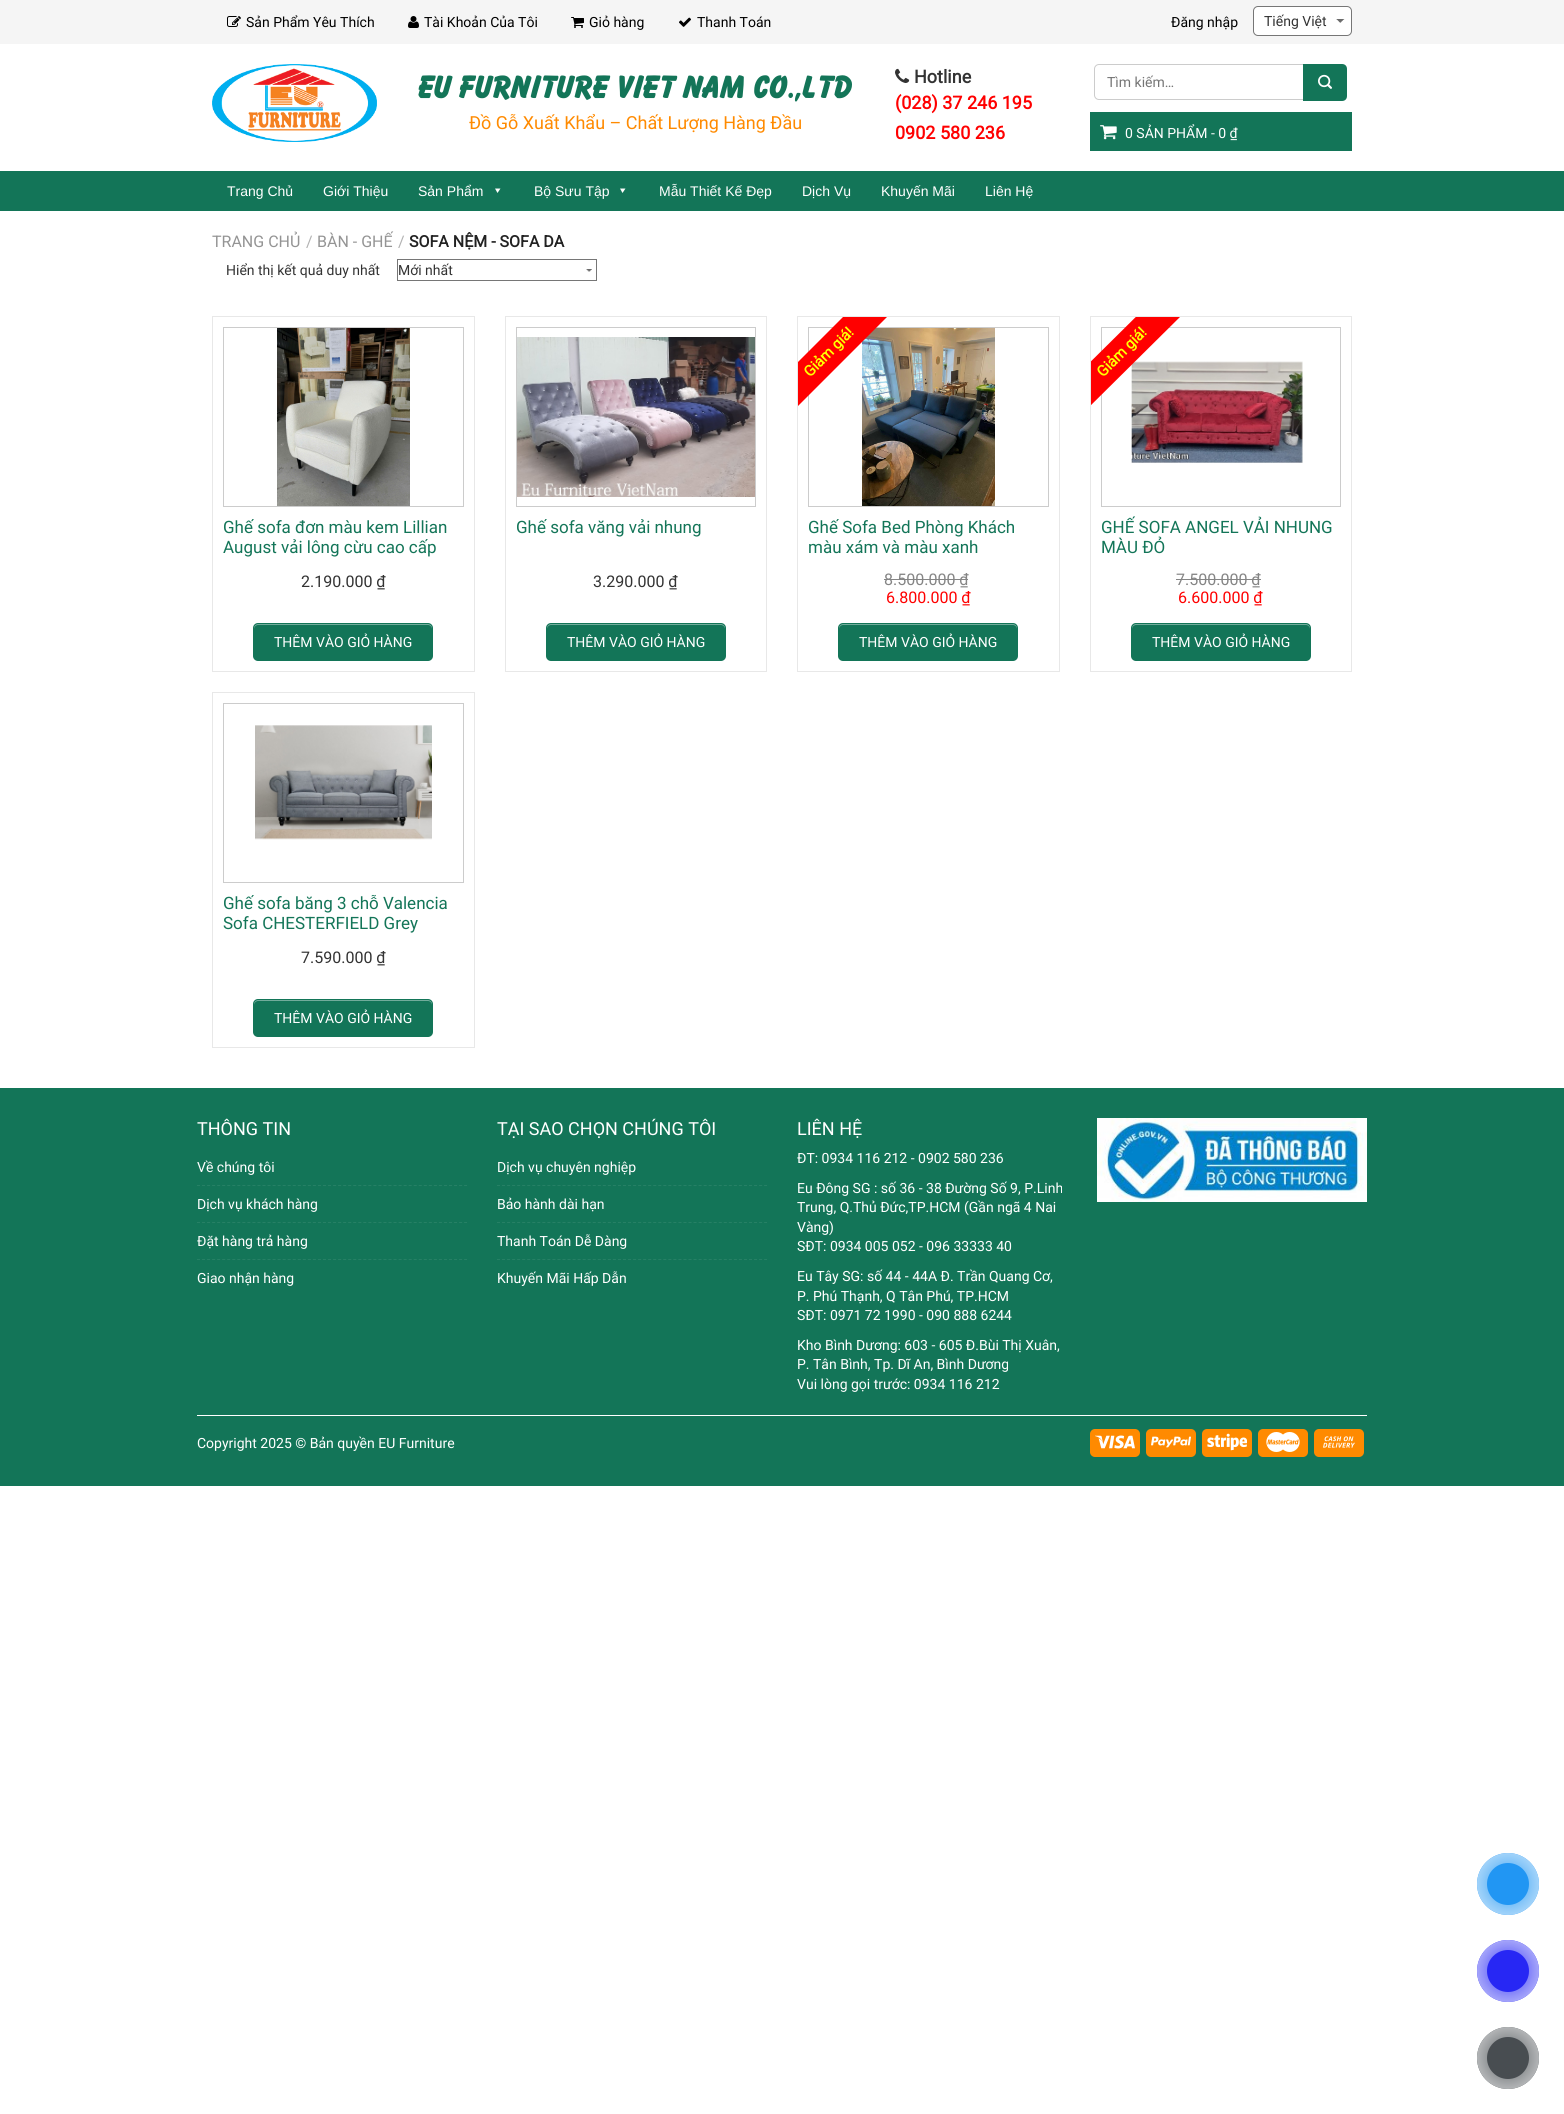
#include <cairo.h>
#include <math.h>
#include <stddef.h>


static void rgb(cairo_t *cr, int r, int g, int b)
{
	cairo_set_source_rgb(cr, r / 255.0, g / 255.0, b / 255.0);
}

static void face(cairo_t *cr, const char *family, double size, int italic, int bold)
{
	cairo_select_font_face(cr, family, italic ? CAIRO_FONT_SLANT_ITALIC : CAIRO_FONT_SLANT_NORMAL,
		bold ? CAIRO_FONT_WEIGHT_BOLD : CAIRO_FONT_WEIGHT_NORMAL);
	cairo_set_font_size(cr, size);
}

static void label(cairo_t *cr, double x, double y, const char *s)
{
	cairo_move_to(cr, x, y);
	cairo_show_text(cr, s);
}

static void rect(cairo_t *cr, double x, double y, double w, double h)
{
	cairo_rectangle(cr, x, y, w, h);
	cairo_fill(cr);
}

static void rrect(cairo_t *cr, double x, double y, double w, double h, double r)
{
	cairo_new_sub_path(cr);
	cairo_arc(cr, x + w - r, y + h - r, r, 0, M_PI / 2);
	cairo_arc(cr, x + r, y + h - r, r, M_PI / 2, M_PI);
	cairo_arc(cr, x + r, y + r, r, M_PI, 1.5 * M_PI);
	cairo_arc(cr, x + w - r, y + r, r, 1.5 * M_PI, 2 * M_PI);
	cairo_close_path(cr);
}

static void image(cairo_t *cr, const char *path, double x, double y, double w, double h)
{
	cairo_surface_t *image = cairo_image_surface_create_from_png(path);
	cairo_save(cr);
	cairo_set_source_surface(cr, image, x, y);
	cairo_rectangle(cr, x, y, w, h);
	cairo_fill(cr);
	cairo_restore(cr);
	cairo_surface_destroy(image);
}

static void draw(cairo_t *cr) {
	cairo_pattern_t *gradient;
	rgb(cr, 255, 255, 255);
	cairo_paint(cr);
	rgb(cr, 245, 245, 245);
	rect(cr, 0, 0, 1564, 44);
	image(cr, "image0.png", 227, 16, 14, 11);
	face(cr, "Roboto", 14, 0, 0);
	rgb(cr, 0, 0, 0);
	label(cr, 246, 27, "Sản Phẩm Yêu Thích");
	image(cr, "image1.png", 408, 16, 11, 12);
	label(cr, 424, 27, "Tài Khoản Của Tôi");
	image(cr, "image2.png", 571, 17, 13, 11);
	label(cr, 589, 27, "Giỏ hàng");
	image(cr, "image3.png", 679, 17, 12, 10);
	label(cr, 697, 27, "Thanh Toán");
	label(cr, 1171, 27, "Đăng nhập");
	rgb(cr, 255, 255, 255);
	rrect(cr, 1253, 6, 99, 30, 5);
	cairo_fill(cr);
	image(cr, "image4.png", 1336, 19, 9, 4);
	rrect(cr, 1253.5, 6.5, 98, 29, 4.5);
	rgb(cr, 118, 118, 118);
	cairo_set_line_width(cr, 1);
	cairo_stroke(cr);
	rgb(cr, 51, 51, 51);
	label(cr, 1264, 26, "Tiếng Việt");
	image(cr, "image5.png", 212, 64, 165, 78);
	face(cr, "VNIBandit", 30, 0, 1);
	rgb(cr, 19, 117, 88);
	label(cr, 419, 98, "EU FURNITURE VIET NAM CO.,LTD");
	face(cr, "Roboto", 18, 0, 0);
	rgb(cr, 255, 138, 0);
	label(cr, 469, 129, "Đồ Gỗ Xuất Khẩu – Chất Lượng Hàng Đầu");
	image(cr, "image6.png", 895, 68, 15, 15);
	face(cr, "Roboto", 18, 0, 1);
	rgb(cr, 51, 51, 51);
	label(cr, 914, 83, "Hotline");
	rgb(cr, 255, 0, 0);
	label(cr, 895, 109, "(028) 37 246 195");
	label(cr, 895, 139, "0902 580 236");
	cairo_new_path(cr);
	cairo_move_to(cr, 1099, 64.5);
	cairo_line_to(cr, 1303.5, 64.5);
	cairo_line_to(cr, 1303.5, 99.5);
	cairo_line_to(cr, 1099, 99.5);
	cairo_curve_to(cr, 1096.5, 99.5, 1094.5, 97.5, 1094.5, 95);
	cairo_line_to(cr, 1094.5, 69);
	cairo_curve_to(cr, 1094.5, 66.5, 1096.5, 64.5, 1099, 64.5);
	cairo_close_path(cr);
	rgb(cr, 204, 204, 204);
	cairo_stroke(cr);
	face(cr, "Roboto", 14, 0, 0);
	rgb(cr, 117, 117, 117);
	label(cr, 1107, 87, "Tìm kiếm…");
	rgb(cr, 19, 117, 88);
	cairo_new_path(cr);
	cairo_move_to(cr, 1303, 64);
	cairo_line_to(cr, 1342, 64);
	cairo_curve_to(cr, 1345, 64, 1347, 66, 1347, 69);
	cairo_line_to(cr, 1347, 96);
	cairo_curve_to(cr, 1347, 99, 1345, 101, 1342, 101);
	cairo_line_to(cr, 1303, 101);
	cairo_close_path(cr);
	cairo_fill(cr);
	image(cr, "image7.png", 1318, 74, 14, 15);
	rect(cr, 1090, 112, 262, 39);
	image(cr, "image8.png", 1100, 125, 17, 15);
	rgb(cr, 255, 255, 255);
	label(cr, 1125, 138, "0 SẢN PHẨM - 0 ₫");
	rgb(cr, 19, 117, 88);
	rect(cr, 0, 171, 1564, 40);
	face(cr, "Liberation Sans", 14, 0, 0);
	rgb(cr, 255, 255, 255);
	label(cr, 227, 196, "Trang Chủ");
	label(cr, 323, 196, "Giới Thiệu");
	label(cr, 418, 196, "Sản Phẩm");
	cairo_new_path(cr);
	cairo_move_to(cr, 500.5, 188.5);
	cairo_line_to(cr, 497.5, 193);
	cairo_line_to(cr, 495, 188.5);
	cairo_close_path(cr);
	cairo_fill(cr);
	label(cr, 534, 196, "Bộ Sưu Tập");
	cairo_new_path(cr);
	cairo_move_to(cr, 625.5, 188.5);
	cairo_line_to(cr, 622.5, 193);
	cairo_line_to(cr, 620, 188.5);
	cairo_close_path(cr);
	cairo_fill(cr);
	label(cr, 659, 196, "Mẫu Thiết Kế Đẹp");
	label(cr, 802, 196, "Dịch Vụ");
	label(cr, 881, 196, "Khuyến Mãi");
	label(cr, 985, 196, "Liên Hệ");
	face(cr, "Roboto", 16, 0, 0);
	rgb(cr, 148, 148, 148);
	label(cr, 212, 247, "TRANG CHỦ");
	rgb(cr, 178, 178, 178);
	label(cr, 306, 247, "/");
	rgb(cr, 148, 148, 148);
	label(cr, 317, 247, "BÀN - GHẾ");
	rgb(cr, 178, 178, 178);
	label(cr, 398, 247, "/");
	face(cr, "Roboto", 16, 0, 1);
	rgb(cr, 34, 34, 34);
	label(cr, 409, 247, "SOFA NỆM - SOFA DA");
	face(cr, "Roboto", 14, 0, 0);
	rgb(cr, 51, 51, 51);
	label(cr, 226, 275, "Hiển thị kết quả duy nhất");
	image(cr, "image9.png", 586, 269, 6, 3);
	cairo_rectangle(cr, 397.5, 259.5, 199, 21);
	rgb(cr, 118, 118, 118);
	cairo_stroke(cr);
	rgb(cr, 51, 51, 51);
	label(cr, 398, 275, "Mới nhất");
	cairo_rectangle(cr, 212.5, 316.5, 262, 355);
	rgb(cr, 232, 232, 232);
	cairo_stroke(cr);
	cairo_rectangle(cr, 223.5, 327.5, 240, 179);
	rgb(cr, 204, 204, 204);
	cairo_stroke(cr);
	image(cr, "image10.png", 277, 328, 133, 178);
	face(cr, "Roboto", 17, 0, 0);
	rgb(cr, 19, 117, 88);
	label(cr, 223, 533, "Ghế sofa đơn màu kem Lillian");
	label(cr, 223, 553, "August vải lông cừu cao cấp");
	face(cr, "Roboto", 16, 0, 0);
	rgb(cr, 51, 51, 51);
	label(cr, 301, 587, "2.190.000 ₫");
	rgb(cr, 19, 117, 88);
	rrect(cr, 253, 623, 180, 38, 5);
	cairo_fill(cr);
	rgb(cr, 113, 172, 155);
	cairo_new_path(cr);
	cairo_move_to(cr, 258, 625);
	cairo_line_to(cr, 428, 625);
	cairo_curve_to(cr, 430, 625, 432, 627, 432, 629);
	cairo_line_to(cr, 432, 628);
	cairo_curve_to(cr, 432, 626, 430, 624, 428, 624);
	cairo_line_to(cr, 258, 624);
	cairo_curve_to(cr, 256, 624, 254, 626, 254, 628);
	cairo_line_to(cr, 254, 629);
	cairo_curve_to(cr, 254, 627, 256, 625, 258, 625);
	cairo_close_path(cr);
	cairo_fill(cr);
	face(cr, "Roboto", 14, 0, 0);
	rgb(cr, 255, 255, 255);
	label(cr, 274, 647, "THÊM VÀO GIỎ HÀNG");
	cairo_rectangle(cr, 505.5, 316.5, 261, 355);
	rgb(cr, 232, 232, 232);
	cairo_stroke(cr);
	cairo_rectangle(cr, 516.5, 327.5, 239, 179);
	rgb(cr, 204, 204, 204);
	cairo_stroke(cr);
	image(cr, "image11.png", 517, 337, 238, 160);
	face(cr, "Roboto", 17, 0, 0);
	rgb(cr, 19, 117, 88);
	label(cr, 516, 533, "Ghế sofa văng vải nhung");
	face(cr, "Roboto", 16, 0, 0);
	rgb(cr, 51, 51, 51);
	label(cr, 593, 587, "3.290.000 ₫");
	rgb(cr, 19, 117, 88);
	rrect(cr, 546, 623, 180, 38, 5);
	cairo_fill(cr);
	rgb(cr, 113, 172, 155);
	cairo_new_path(cr);
	cairo_move_to(cr, 551, 625);
	cairo_line_to(cr, 721, 625);
	cairo_curve_to(cr, 723, 625, 725, 627, 725, 629);
	cairo_line_to(cr, 725, 628);
	cairo_curve_to(cr, 725, 626, 723, 624, 721, 624);
	cairo_line_to(cr, 551, 624);
	cairo_curve_to(cr, 549, 624, 547, 626, 547, 628);
	cairo_line_to(cr, 547, 629);
	cairo_curve_to(cr, 547, 627, 549, 625, 551, 625);
	cairo_close_path(cr);
	cairo_fill(cr);
	face(cr, "Roboto", 14, 0, 0);
	rgb(cr, 255, 255, 255);
	label(cr, 567, 647, "THÊM VÀO GIỎ HÀNG");
	cairo_rectangle(cr, 797.5, 316.5, 262, 355);
	rgb(cr, 232, 232, 232);
	cairo_stroke(cr);
	cairo_rectangle(cr, 808.5, 327.5, 240, 179);
	rgb(cr, 204, 204, 204);
	cairo_stroke(cr);
	image(cr, "image12.png", 862, 328, 133, 178);
	cairo_save(cr);
	cairo_rectangle(cr, 798, 317, 261, 354);
	cairo_clip(cr);
	rgb(cr, 255, 0, 0);
	cairo_new_path(cr);
	cairo_move_to(cr, 768, 392);
	cairo_line_to(cr, 869, 291);
	cairo_line_to(cr, 891, 313);
	cairo_line_to(cr, 790, 414);
	cairo_close_path(cr);
	cairo_fill(cr);
	cairo_restore(cr);
	face(cr, "Roboto", 15, 0, 1);
	rgb(cr, 255, 255, 0);
	cairo_save(cr);
	cairo_translate(cr, 810, 378);
	cairo_rotate(cr, -45 * M_PI / 180);
	label(cr, 0, 0, "Giảm giá!");
	cairo_restore(cr);
	face(cr, "Roboto", 17, 0, 0);
	rgb(cr, 19, 117, 88);
	label(cr, 808, 533, "Ghế Sofa Bed Phòng Khách");
	label(cr, 808, 553, "màu xám và màu xanh");
	face(cr, "Roboto", 16, 0, 0);
	rgb(cr, 133, 133, 133);
	label(cr, 884, 585, "8.500.000 ₫");
	rect(cr, 884, 579, 84, 1);
	rgb(cr, 255, 0, 0);
	label(cr, 886, 603, "6.800.000 ₫");
	rgb(cr, 19, 117, 88);
	rrect(cr, 838, 623, 180, 38, 5);
	cairo_fill(cr);
	rgb(cr, 113, 172, 155);
	cairo_new_path(cr);
	cairo_move_to(cr, 843, 625);
	cairo_line_to(cr, 1013, 625);
	cairo_curve_to(cr, 1015, 625, 1017, 627, 1017, 629);
	cairo_line_to(cr, 1017, 628);
	cairo_curve_to(cr, 1017, 626, 1015, 624, 1013, 624);
	cairo_line_to(cr, 843, 624);
	cairo_curve_to(cr, 841, 624, 839, 626, 839, 628);
	cairo_line_to(cr, 839, 629);
	cairo_curve_to(cr, 839, 627, 841, 625, 843, 625);
	cairo_close_path(cr);
	cairo_fill(cr);
	face(cr, "Roboto", 14, 0, 0);
	rgb(cr, 255, 255, 255);
	label(cr, 859, 647, "THÊM VÀO GIỎ HÀNG");
	cairo_rectangle(cr, 1090.5, 316.5, 261, 355);
	rgb(cr, 232, 232, 232);
	cairo_stroke(cr);
	cairo_rectangle(cr, 1101.5, 327.5, 239, 179);
	rgb(cr, 204, 204, 204);
	cairo_stroke(cr);
	image(cr, "image13.png", 1131, 361, 172, 102);
	cairo_save(cr);
	cairo_rectangle(cr, 1091, 317, 260, 354);
	cairo_clip(cr);
	rgb(cr, 255, 0, 0);
	cairo_new_path(cr);
	cairo_move_to(cr, 1060, 392);
	cairo_line_to(cr, 1162, 291);
	cairo_line_to(cr, 1184, 313);
	cairo_line_to(cr, 1082, 414);
	cairo_close_path(cr);
	cairo_fill(cr);
	cairo_restore(cr);
	face(cr, "Roboto", 15, 0, 1);
	rgb(cr, 255, 255, 0);
	cairo_save(cr);
	cairo_translate(cr, 1103, 378);
	cairo_rotate(cr, -45 * M_PI / 180);
	label(cr, 0, 0, "Giảm giá!");
	cairo_restore(cr);
	face(cr, "Roboto", 17, 0, 0);
	rgb(cr, 19, 117, 88);
	label(cr, 1101, 533, "GHẾ SOFA ANGEL VẢI NHUNG");
	label(cr, 1101, 553, "MÀU ĐỎ");
	face(cr, "Roboto", 16, 0, 0);
	rgb(cr, 133, 133, 133);
	label(cr, 1176, 585, "7.500.000 ₫");
	rect(cr, 1176, 579, 85, 1);
	rgb(cr, 255, 0, 0);
	label(cr, 1178, 603, "6.600.000 ₫");
	rgb(cr, 19, 117, 88);
	rrect(cr, 1131, 623, 180, 38, 5);
	cairo_fill(cr);
	rgb(cr, 113, 172, 155);
	cairo_new_path(cr);
	cairo_move_to(cr, 1136, 625);
	cairo_line_to(cr, 1306, 625);
	cairo_curve_to(cr, 1308, 625, 1310, 627, 1310, 629);
	cairo_line_to(cr, 1310, 628);
	cairo_curve_to(cr, 1310, 626, 1308, 624, 1306, 624);
	cairo_line_to(cr, 1136, 624);
	cairo_curve_to(cr, 1134, 624, 1132, 626, 1132, 628);
	cairo_line_to(cr, 1132, 629);
	cairo_curve_to(cr, 1132, 627, 1134, 625, 1136, 625);
	cairo_close_path(cr);
	cairo_fill(cr);
	face(cr, "Roboto", 14, 0, 0);
	rgb(cr, 255, 255, 255);
	label(cr, 1152, 647, "THÊM VÀO GIỎ HÀNG");
	cairo_rectangle(cr, 212.5, 692.5, 262, 355);
	rgb(cr, 232, 232, 232);
	cairo_stroke(cr);
	cairo_rectangle(cr, 223.5, 703.5, 240, 179);
	rgb(cr, 204, 204, 204);
	cairo_stroke(cr);
	image(cr, "image14.png", 255, 725, 177, 115);
	face(cr, "Roboto", 17, 0, 0);
	rgb(cr, 19, 117, 88);
	label(cr, 223, 909, "Ghế sofa băng 3 chỗ Valencia");
	label(cr, 223, 929, "Sofa CHESTERFIELD Grey");
	face(cr, "Roboto", 16, 0, 0);
	rgb(cr, 51, 51, 51);
	label(cr, 301, 963, "7.590.000 ₫");
	rgb(cr, 19, 117, 88);
	rrect(cr, 253, 999, 180, 38, 5);
	cairo_fill(cr);
	rgb(cr, 113, 172, 155);
	cairo_new_path(cr);
	cairo_move_to(cr, 258, 1001);
	cairo_line_to(cr, 428, 1001);
	cairo_curve_to(cr, 430, 1001, 432, 1003, 432, 1005);
	cairo_line_to(cr, 432, 1004);
	cairo_curve_to(cr, 432, 1002, 430, 1000, 428, 1000);
	cairo_line_to(cr, 258, 1000);
	cairo_curve_to(cr, 256, 1000, 254, 1002, 254, 1004);
	cairo_line_to(cr, 254, 1005);
	cairo_curve_to(cr, 254, 1003, 256, 1001, 258, 1001);
	cairo_close_path(cr);
	cairo_fill(cr);
	face(cr, "Roboto", 14, 0, 0);
	rgb(cr, 255, 255, 255);
	label(cr, 274, 1023, "THÊM VÀO GIỎ HÀNG");
	rgb(cr, 19, 117, 88);
	rect(cr, 0, 1088, 1564, 398);
	face(cr, "Roboto", 18, 0, 0);
	rgb(cr, 255, 255, 255);
	label(cr, 197, 1135, "THÔNG TIN");
	face(cr, "Roboto", 14, 0, 0);
	label(cr, 197, 1172, "Về chúng tôi");
	cairo_new_path(cr);
	cairo_move_to(cr, 197, 1185.5);
	cairo_line_to(cr, 467, 1185.5);
	rgb(cr, 38, 128, 101);
	cairo_set_dash(cr, (double[]){3, 2.04}, 2, 0);
	cairo_stroke(cr);
	rgb(cr, 255, 255, 255);
	label(cr, 197, 1209, "Dịch vụ khách hàng");
	cairo_new_path(cr);
	cairo_move_to(cr, 197, 1222.5);
	cairo_line_to(cr, 467, 1222.5);
	rgb(cr, 38, 128, 101);
	cairo_stroke(cr);
	rgb(cr, 255, 255, 255);
	label(cr, 197, 1246, "Đặt hàng trả hàng");
	cairo_new_path(cr);
	cairo_move_to(cr, 197, 1259.5);
	cairo_line_to(cr, 467, 1259.5);
	rgb(cr, 38, 128, 101);
	cairo_stroke(cr);
	rgb(cr, 255, 255, 255);
	label(cr, 197, 1283, "Giao nhận hàng");
	face(cr, "Roboto", 18, 0, 0);
	label(cr, 497, 1135, "TẠI SAO CHỌN CHÚNG TÔI");
	face(cr, "Roboto", 14, 0, 0);
	label(cr, 497, 1172, "Dịch vụ chuyên nghiệp");
	cairo_new_path(cr);
	cairo_move_to(cr, 497, 1185.5);
	cairo_line_to(cr, 767, 1185.5);
	rgb(cr, 38, 128, 101);
	cairo_stroke(cr);
	rgb(cr, 255, 255, 255);
	label(cr, 497, 1209, "Bảo hành dài hạn");
	cairo_new_path(cr);
	cairo_move_to(cr, 497, 1222.5);
	cairo_line_to(cr, 767, 1222.5);
	rgb(cr, 38, 128, 101);
	cairo_stroke(cr);
	rgb(cr, 255, 255, 255);
	label(cr, 497, 1246, "Thanh Toán Dễ Dàng");
	cairo_new_path(cr);
	cairo_move_to(cr, 497, 1259.5);
	cairo_line_to(cr, 767, 1259.5);
	rgb(cr, 38, 128, 101);
	cairo_stroke(cr);
	rgb(cr, 255, 255, 255);
	label(cr, 497, 1283, "Khuyến Mãi Hấp Dẫn");
	face(cr, "Roboto", 18, 0, 0);
	label(cr, 797, 1135, "LIÊN HỆ");
	face(cr, "Roboto", 14, 0, 0);
	label(cr, 797, 1163, "ĐT: 0934 116 212 - 0902 580 236");
	label(cr, 797, 1193, "Eu Đông SG : số 36 - 38 Đường Số 9, P.Linh");
	label(cr, 797, 1212, "Trung, Q.Thủ Đức,TP.HCM (Gần ngã 4 Nai");
	label(cr, 797, 1232, "Vàng)");
	label(cr, 797, 1251, "SĐT: 0934 005 052 - 096 33333 40");
	label(cr, 797, 1281, "Eu Tây SG: số 44 - 44A Đ. Trần Quang Cơ,");
	label(cr, 797, 1301, "P. Phú Thạnh, Q Tân Phú, TP.HCM");
	label(cr, 797, 1320, "SĐT: 0971 72 1990 - 090 888 6244");
	label(cr, 797, 1350, "Kho Bình Dương: 603 - 605 Đ.Bùi Thị Xuân,");
	label(cr, 797, 1369, "P. Tân Bình, Tp. Dĩ An, Bình Dương");
	label(cr, 797, 1389, "Vui lòng gọi trước: 0934 116 212");
	image(cr, "image15.png", 1097, 1118, 270, 84);
	rect(cr, 197, 1415, 1170, 1);
	label(cr, 197, 1448, "Copyright 2025 © Bản quyền EU Furniture");
	rgb(cr, 255, 138, 0);
	rrect(cr, 1090, 1429, 50, 28, 5);
	cairo_fill(cr);
	image(cr, "image16.png", 1095, 1435, 40, 14);
	rrect(cr, 1146, 1429, 50, 28, 5);
	cairo_fill(cr);
	image(cr, "image17.png", 1151, 1436, 40, 12);
	rrect(cr, 1202, 1429, 50, 28, 5);
	cairo_fill(cr);
	image(cr, "image18.png", 1207, 1433, 40, 18);
	rrect(cr, 1258, 1429, 50, 28, 5);
	cairo_fill(cr);
	image(cr, "image19.png", 1266, 1432, 34, 20);
	rrect(cr, 1314, 1429, 50, 28, 5);
	cairo_fill(cr);
	image(cr, "image20.png", 1323, 1436, 32, 12);
	rgb(cr, 33, 150, 243);
	cairo_arc(cr, 1508, 1884, 31, 0, 2 * M_PI);
	cairo_fill(cr);
	gradient = cairo_pattern_create_radial(1508, 1884, 0, 1508, 1884, 44);
	cairo_pattern_add_color_stop_rgba(gradient, 0, 0.129, 0.588, 0.953, 1);
	cairo_pattern_add_color_stop_rgba(gradient, 1, 1, 1, 1, 0.75);
	cairo_set_source(cr, gradient);
	cairo_pattern_destroy(gradient);
	cairo_arc(cr, 1508, 1884, 31, 0, 2 * M_PI);
	cairo_fill(cr);
	rgb(cr, 33, 150, 243);
	cairo_arc(cr, 1508, 1884, 21, 0, 2 * M_PI);
	cairo_fill(cr);
	rgb(cr, 39, 39, 244);
	cairo_arc(cr, 1508, 1971, 31, 0, 2 * M_PI);
	cairo_fill(cr);
	gradient = cairo_pattern_create_radial(1508, 1971, 0, 1508, 1971, 44);
	cairo_pattern_add_color_stop_rgba(gradient, 0, 0.153, 0.153, 0.957, 1);
	cairo_pattern_add_color_stop_rgba(gradient, 1, 1, 1, 1, 0.75);
	cairo_set_source(cr, gradient);
	cairo_pattern_destroy(gradient);
	cairo_arc(cr, 1508, 1971, 31, 0, 2 * M_PI);
	cairo_fill(cr);
	rgb(cr, 39, 39, 244);
	cairo_arc(cr, 1508, 1971, 21, 0, 2 * M_PI);
	cairo_fill(cr);
	rgb(cr, 72, 77, 81);
	cairo_arc(cr, 1508, 2058, 31, 0, 2 * M_PI);
	cairo_fill(cr);
	gradient = cairo_pattern_create_radial(1508, 2058, 0, 1508, 2058, 44);
	cairo_pattern_add_color_stop_rgba(gradient, 0, 0.282, 0.302, 0.318, 1);
	cairo_pattern_add_color_stop_rgba(gradient, 1, 1, 1, 1, 0.75);
	cairo_set_source(cr, gradient);
	cairo_pattern_destroy(gradient);
	cairo_arc(cr, 1508, 2058, 31, 0, 2 * M_PI);
	cairo_fill(cr);
	rgb(cr, 72, 77, 81);
	cairo_arc(cr, 1508, 2058, 21, 0, 2 * M_PI);
	cairo_fill(cr);
}

int main(void) {
	cairo_surface_t *surface = cairo_image_surface_create(CAIRO_FORMAT_RGB24, 1564, 2114);
	cairo_t *cr = cairo_create(surface);
	cairo_font_options_t *options = cairo_font_options_create();
	cairo_font_options_set_hint_metrics(options, CAIRO_HINT_METRICS_OFF);
	cairo_font_options_set_hint_style(options, CAIRO_HINT_STYLE_NONE);
	cairo_set_font_options(cr, options);
	cairo_set_miter_limit(cr, 4);
	draw(cr);
	cairo_surface_write_to_png(surface, "render.png");
	cairo_font_options_destroy(options);
	cairo_destroy(cr);
	cairo_surface_destroy(surface);
	return 0;
}
